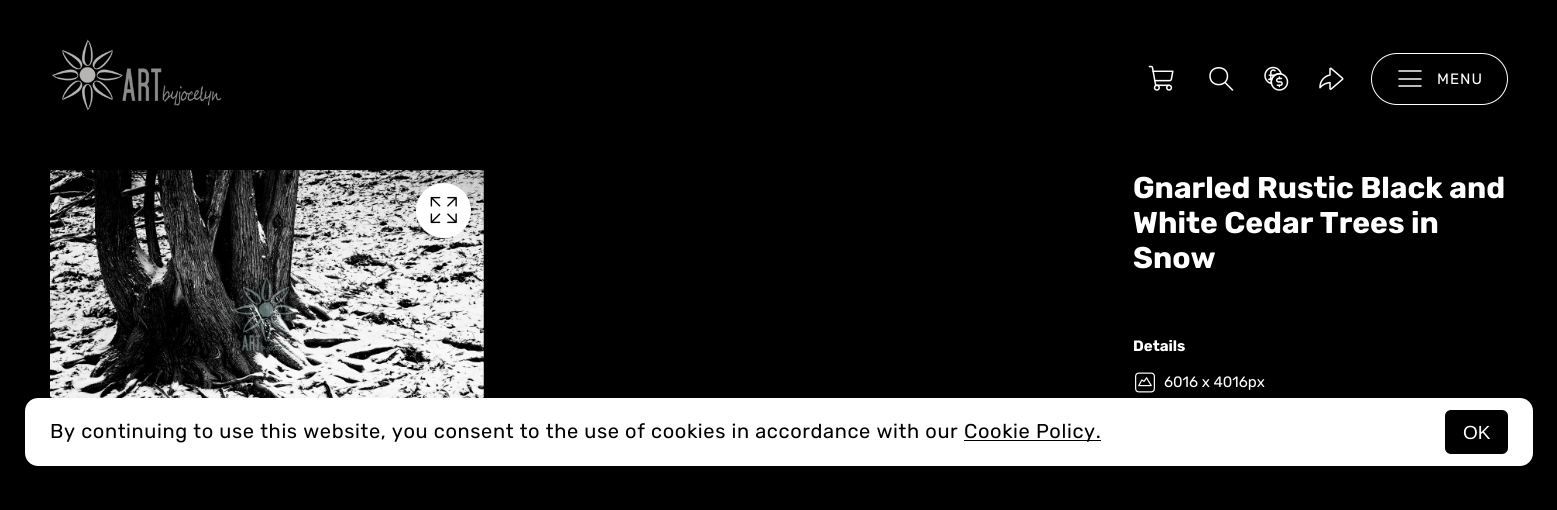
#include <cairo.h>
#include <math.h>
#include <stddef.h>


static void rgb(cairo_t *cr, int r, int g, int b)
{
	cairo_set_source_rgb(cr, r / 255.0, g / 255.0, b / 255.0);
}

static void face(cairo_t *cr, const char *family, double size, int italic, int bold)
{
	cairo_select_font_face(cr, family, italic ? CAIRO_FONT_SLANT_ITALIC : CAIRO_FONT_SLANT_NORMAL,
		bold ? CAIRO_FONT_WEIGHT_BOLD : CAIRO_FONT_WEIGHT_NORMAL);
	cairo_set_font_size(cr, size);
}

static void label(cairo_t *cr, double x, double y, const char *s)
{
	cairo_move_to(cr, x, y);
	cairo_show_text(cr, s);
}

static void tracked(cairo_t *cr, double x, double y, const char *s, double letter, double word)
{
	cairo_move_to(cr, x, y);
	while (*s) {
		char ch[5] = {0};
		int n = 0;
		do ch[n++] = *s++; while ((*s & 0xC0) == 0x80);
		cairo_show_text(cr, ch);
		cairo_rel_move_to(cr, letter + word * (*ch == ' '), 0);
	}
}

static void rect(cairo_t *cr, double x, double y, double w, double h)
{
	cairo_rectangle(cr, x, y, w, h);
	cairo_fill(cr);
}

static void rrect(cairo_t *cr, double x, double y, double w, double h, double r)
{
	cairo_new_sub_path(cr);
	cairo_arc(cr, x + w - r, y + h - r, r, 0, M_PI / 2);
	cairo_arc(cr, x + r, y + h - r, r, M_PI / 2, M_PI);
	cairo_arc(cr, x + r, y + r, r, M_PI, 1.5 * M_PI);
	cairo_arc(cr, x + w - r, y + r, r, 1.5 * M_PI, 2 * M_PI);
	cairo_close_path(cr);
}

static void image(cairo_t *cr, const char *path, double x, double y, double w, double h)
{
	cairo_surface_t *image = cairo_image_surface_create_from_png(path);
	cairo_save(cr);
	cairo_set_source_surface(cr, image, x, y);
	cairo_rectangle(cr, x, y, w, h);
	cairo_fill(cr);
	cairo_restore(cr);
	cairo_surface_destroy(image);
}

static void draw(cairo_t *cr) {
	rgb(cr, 0, 0, 0);
	cairo_paint(cr);
	image(cr, "image0.png", 52, 39, 170, 72);
	image(cr, "image1.png", 1148, 65, 26, 26);
	cairo_new_path(cr);
	cairo_move_to(cr, 1232.5, 90);
	cairo_line_to(cr, 1225, 82.5);
	cairo_move_to(cr, 1227.5, 76);
	cairo_curve_to(cr, 1227.5, 87.5, 1210, 87.5, 1210, 76);
	cairo_curve_to(cr, 1210, 65, 1227.5, 65, 1227.5, 76);
	cairo_close_path(cr);
	rgb(cr, 255, 255, 255);
	cairo_set_line_width(cr, 1.5);
	cairo_set_line_cap(cr, CAIRO_LINE_CAP_ROUND);
	cairo_set_line_join(cr, CAIRO_LINE_JOIN_ROUND);
	cairo_stroke(cr);
	image(cr, "image2.png", 1264, 66, 25, 25);
	image(cr, "image3.png", 1319, 67, 25, 23);
	rrect(cr, 1371.5, 53.5, 136, 51, 25.5);
	cairo_set_line_width(cr, 1);
	cairo_set_line_cap(cr, CAIRO_LINE_CAP_BUTT);
	cairo_set_line_join(cr, CAIRO_LINE_JOIN_MITER);
	cairo_stroke(cr);
	cairo_new_path(cr);
	cairo_move_to(cr, 1399, 79);
	cairo_line_to(cr, 1421, 79);
	cairo_move_to(cr, 1399, 71);
	cairo_line_to(cr, 1421, 71);
	cairo_move_to(cr, 1399, 86);
	cairo_line_to(cr, 1421, 86);
	cairo_set_line_width(cr, 1.5);
	cairo_set_line_cap(cr, CAIRO_LINE_CAP_ROUND);
	cairo_set_line_join(cr, CAIRO_LINE_JOIN_ROUND);
	cairo_stroke(cr);
	face(cr, "Rubik", 15, 0, 0);
	tracked(cr, 1437, 84, "MENU", 1, 0);
	image(cr, "image4.png", 50, 170, 434, 228);
	cairo_arc(cr, 443.5, 210.5, 27.5, 0, 2 * M_PI);
	cairo_fill(cr);
	image(cr, "image5.png", 430, 196, 27, 28);
	face(cr, "Rubik", 30, 0, 1);
	label(cr, 1133, 198, "Gnarled Rustic Black and");
	label(cr, 1133, 233, "White Cedar Trees in");
	label(cr, 1133, 268, "Snow");
	face(cr, "Rubik", 15, 0, 1);
	label(cr, 1133, 351, "Details");
	image(cr, "image6.png", 1135, 372, 20, 21);
	face(cr, "Rubik", 15, 0, 0);
	label(cr, 1164, 387, "6016 x 4016px");
	rrect(cr, 25, 398, 1508, 68, 13);
	cairo_fill(cr);
	face(cr, "Rubik", 20, 0, 0);
	rgb(cr, 0, 0, 0);
	tracked(cr, 50, 438, "By continuing to use this website, you consent to the use of cookies in accordance with our", 0.62, 0);
	rect(cr, 964, 440, 137, 1);
	tracked(cr, 964, 438, "Cookie Policy.", 0.62, 0);
	rrect(cr, 1445, 410, 63, 44, 6);
	cairo_fill(cr);
	face(cr, "Liberation Sans", 19, 0, 0);
	rgb(cr, 255, 255, 255);
	label(cr, 1463, 439, "OK");
}

int main(void) {
	cairo_surface_t *surface = cairo_image_surface_create(CAIRO_FORMAT_RGB24, 1557, 510);
	cairo_t *cr = cairo_create(surface);
	cairo_font_options_t *options = cairo_font_options_create();
	cairo_font_options_set_hint_metrics(options, CAIRO_HINT_METRICS_OFF);
	cairo_font_options_set_hint_style(options, CAIRO_HINT_STYLE_NONE);
	cairo_set_font_options(cr, options);
	cairo_set_miter_limit(cr, 4);
	draw(cr);
	cairo_surface_write_to_png(surface, "render.png");
	cairo_font_options_destroy(options);
	cairo_destroy(cr);
	cairo_surface_destroy(surface);
	return 0;
}
